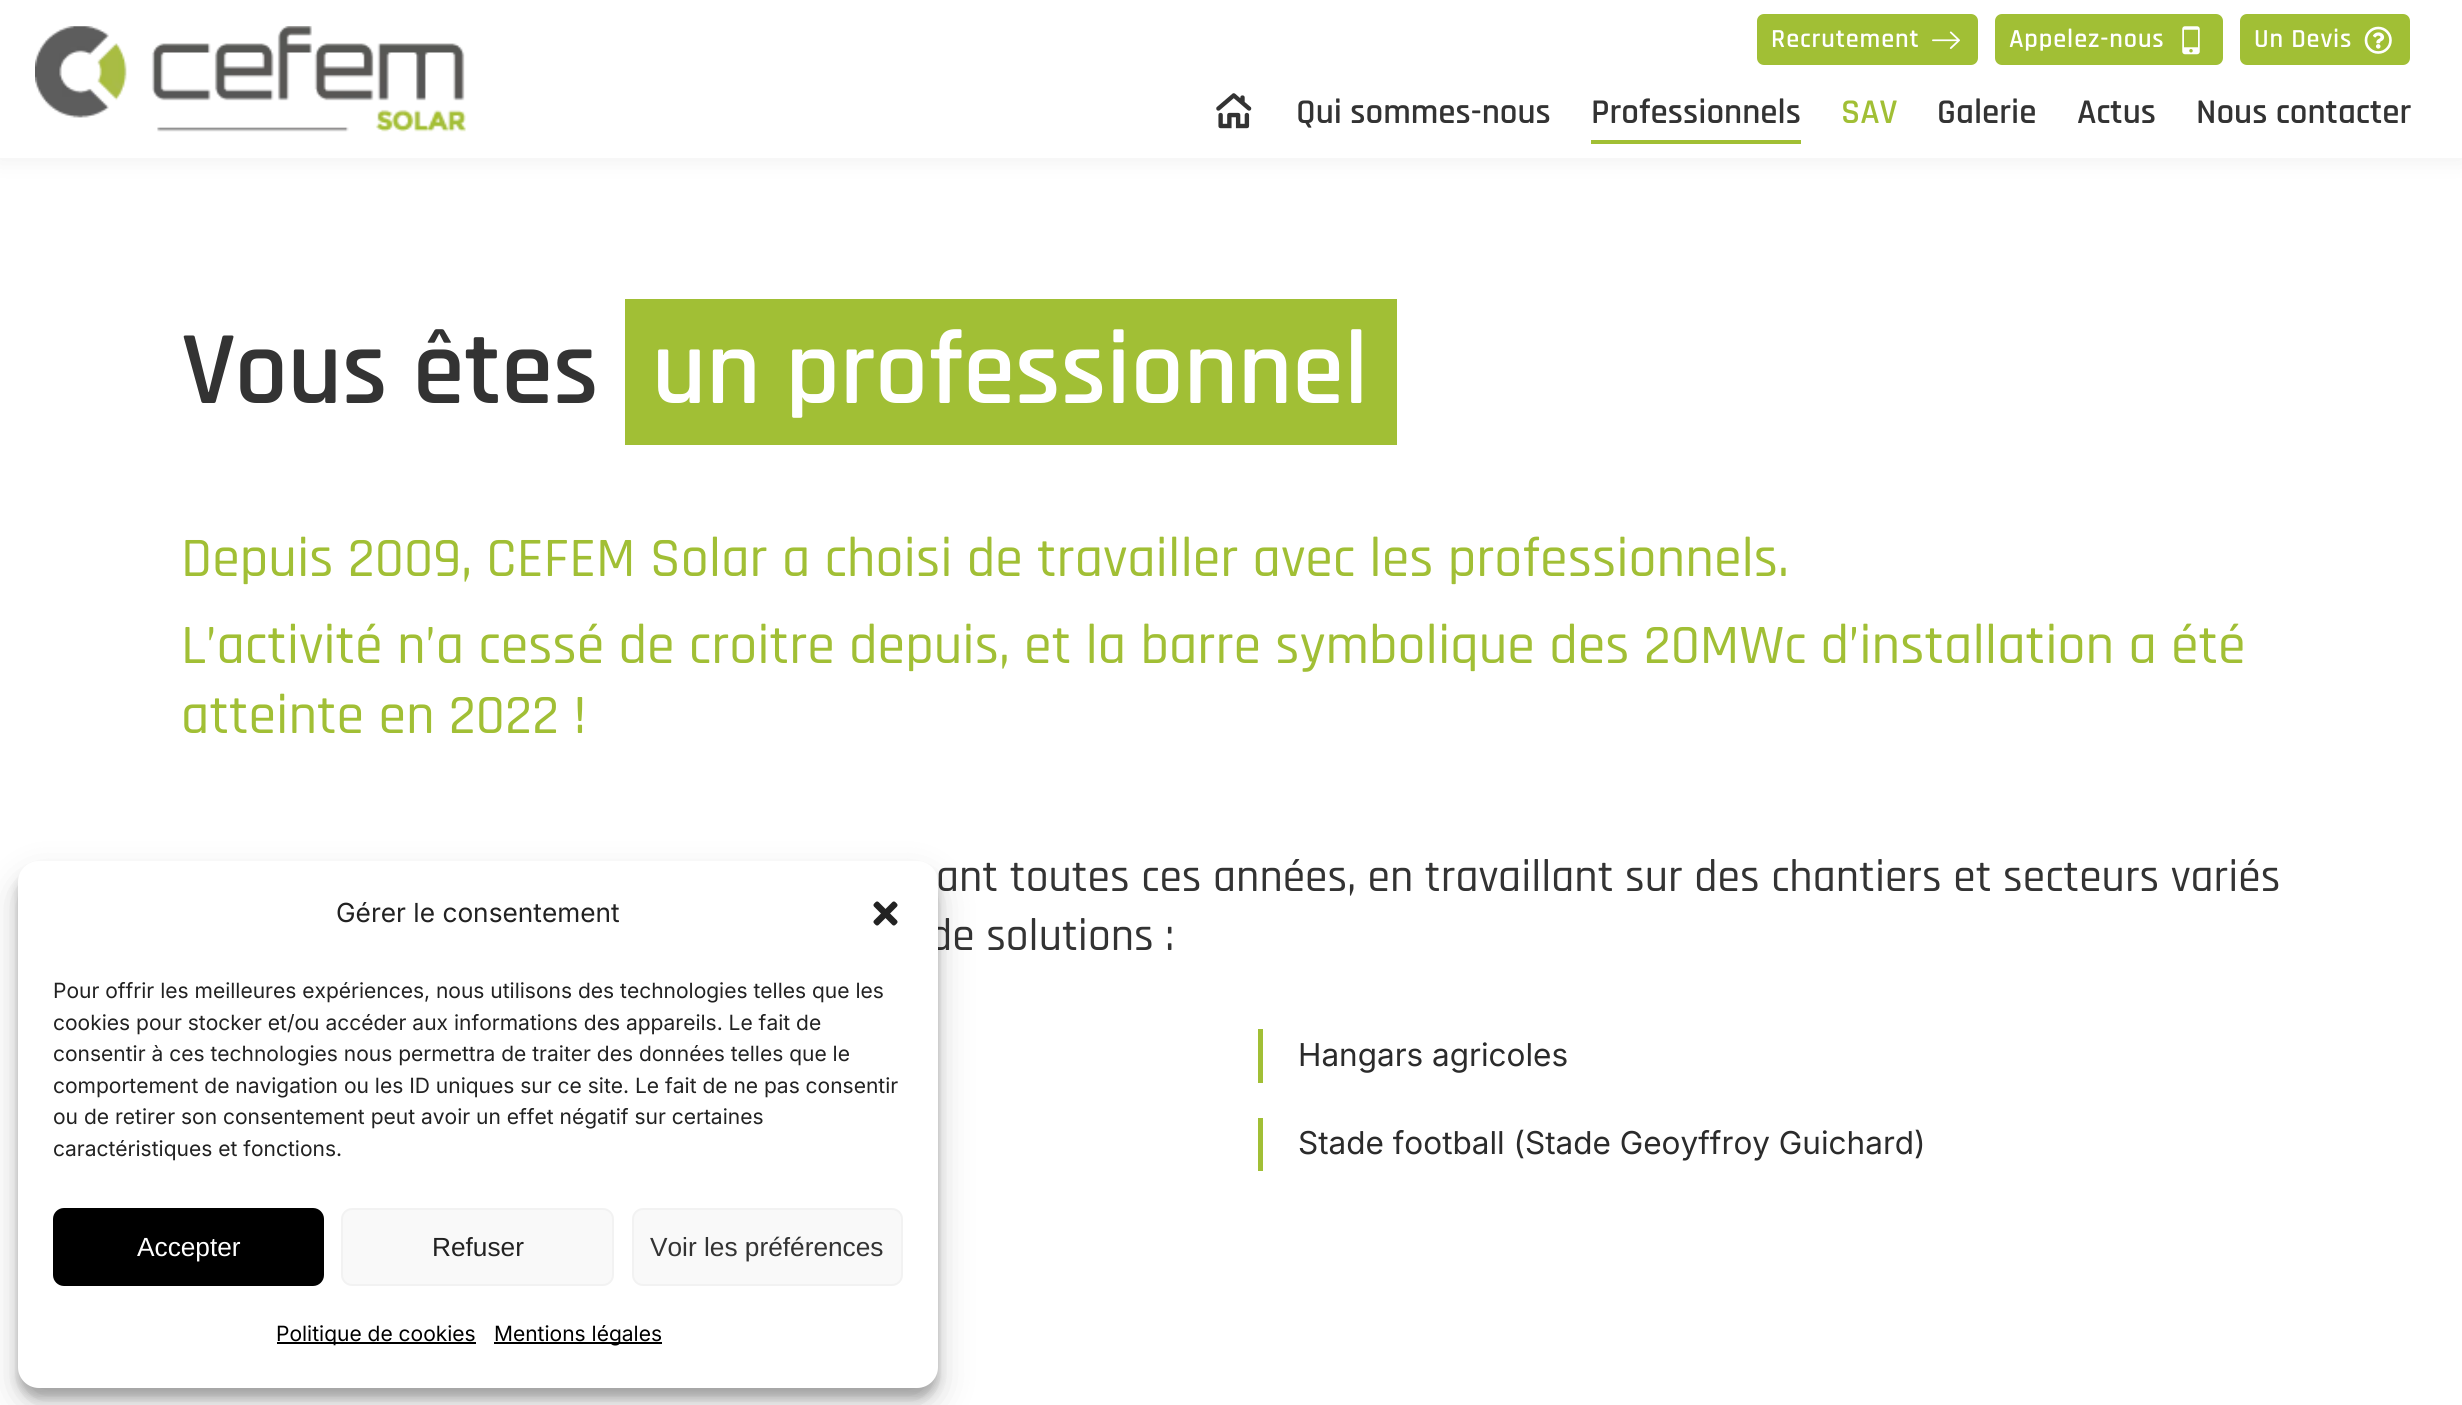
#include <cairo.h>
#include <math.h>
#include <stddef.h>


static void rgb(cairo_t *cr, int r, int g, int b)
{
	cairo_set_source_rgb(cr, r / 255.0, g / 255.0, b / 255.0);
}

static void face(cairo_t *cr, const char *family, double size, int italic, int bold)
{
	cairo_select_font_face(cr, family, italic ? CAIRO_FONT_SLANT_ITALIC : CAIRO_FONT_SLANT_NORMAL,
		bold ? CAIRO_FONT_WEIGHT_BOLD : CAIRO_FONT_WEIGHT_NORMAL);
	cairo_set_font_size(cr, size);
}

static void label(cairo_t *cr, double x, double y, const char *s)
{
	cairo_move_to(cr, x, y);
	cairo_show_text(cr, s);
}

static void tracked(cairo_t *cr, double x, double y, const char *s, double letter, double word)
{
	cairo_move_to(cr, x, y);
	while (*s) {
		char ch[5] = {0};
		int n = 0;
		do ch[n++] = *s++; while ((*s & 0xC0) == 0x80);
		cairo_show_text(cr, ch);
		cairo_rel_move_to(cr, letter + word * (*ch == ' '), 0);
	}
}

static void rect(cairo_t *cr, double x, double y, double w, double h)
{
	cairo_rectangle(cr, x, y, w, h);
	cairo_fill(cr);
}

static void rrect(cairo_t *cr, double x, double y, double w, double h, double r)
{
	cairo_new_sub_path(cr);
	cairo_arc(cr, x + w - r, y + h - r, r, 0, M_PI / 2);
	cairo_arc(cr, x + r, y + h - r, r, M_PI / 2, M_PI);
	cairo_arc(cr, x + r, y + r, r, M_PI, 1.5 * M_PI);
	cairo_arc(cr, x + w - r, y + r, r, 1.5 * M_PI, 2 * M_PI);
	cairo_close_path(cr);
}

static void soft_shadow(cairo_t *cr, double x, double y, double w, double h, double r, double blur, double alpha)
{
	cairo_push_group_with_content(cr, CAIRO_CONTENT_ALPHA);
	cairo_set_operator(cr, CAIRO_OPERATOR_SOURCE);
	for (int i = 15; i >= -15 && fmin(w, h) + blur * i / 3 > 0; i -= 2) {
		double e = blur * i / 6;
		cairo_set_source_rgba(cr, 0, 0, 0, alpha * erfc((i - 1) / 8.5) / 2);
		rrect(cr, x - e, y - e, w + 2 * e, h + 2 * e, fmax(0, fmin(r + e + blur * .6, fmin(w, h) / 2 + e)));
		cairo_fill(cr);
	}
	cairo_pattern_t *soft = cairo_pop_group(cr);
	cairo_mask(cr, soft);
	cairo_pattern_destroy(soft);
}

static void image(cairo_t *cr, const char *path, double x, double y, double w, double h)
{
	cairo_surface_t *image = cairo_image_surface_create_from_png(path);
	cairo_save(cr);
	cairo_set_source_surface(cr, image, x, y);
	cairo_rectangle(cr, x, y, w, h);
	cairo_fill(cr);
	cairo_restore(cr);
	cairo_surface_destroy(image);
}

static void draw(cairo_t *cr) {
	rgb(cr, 255, 255, 255);
	cairo_paint(cr);
	rgb(cr, 0, 0, 0);
	soft_shadow(cr, -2, -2, 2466, 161, 0, 13, 0.07);
	rgb(cr, 255, 255, 255);
	rect(cr, 0, 0, 2462, 158);
	image(cr, "image0.png", 35, 26, 431, 106);
	rgb(cr, 161, 191, 53);
	rrect(cr, 1757, 14, 221, 51, 7);
	cairo_fill(cr);
	face(cr, "Rajdhani SemiBold", 26.25, 0, 0);
	rgb(cr, 255, 255, 255);
	tracked(cr, 1771, 47, "Recrutement", 0.9, 0);
	image(cr, "image1.png", 1932, 31, 28, 18);
	rgb(cr, 161, 191, 53);
	rrect(cr, 1995, 14, 228, 51, 7);
	cairo_fill(cr);
	rgb(cr, 255, 255, 255);
	tracked(cr, 2009, 47, "Appelez-nous", 0.9, 0);
	image(cr, "image2.png", 2182, 26, 18, 29);
	rgb(cr, 161, 191, 53);
	rrect(cr, 2240, 14, 170, 51, 7);
	cairo_fill(cr);
	rgb(cr, 255, 255, 255);
	tracked(cr, 2254, 47, "Un Devis", 0.9, 0);
	image(cr, "image3.png", 2364, 26, 28, 28);
	image(cr, "image4.png", 1216, 93, 36, 36);
	face(cr, "Rajdhani SemiBold", 35, 0, 0);
	rgb(cr, 51, 51, 51);
	label(cr, 1296, 123, "Qui sommes-nous");
	label(cr, 1591, 123, "Professionnels");
	rgb(cr, 161, 191, 52);
	rect(cr, 1591, 140, 210, 4);
	rgb(cr, 161, 191, 53);
	label(cr, 1841, 123, "SAV");
	rgb(cr, 51, 51, 51);
	label(cr, 1937, 123, "Galerie");
	label(cr, 2077, 123, "Actus");
	label(cr, 2196, 123, "Nous contacter");
	face(cr, "Rajdhani SemiBold", 105, 0, 0);
	label(cr, 181, 403, "Vous êtes");
	rgb(cr, 161, 191, 53);
	rect(cr, 625, 299, 772, 146);
	rgb(cr, 255, 255, 255);
	label(cr, 652, 403, "un professionnel");
	face(cr, "Rajdhani Medium", 56, 0, 0);
	rgb(cr, 161, 191, 53);
	label(cr, 181, 576, "Depuis 2009, CEFEM Solar a choisi de travailler avec les professionnels.");
	label(cr, 181, 663, "L’activité n’a cessé de croitre depuis, et la barre symbolique des 20MWc d’installation a été");
	label(cr, 181, 733, "atteinte en 2022 !");
	face(cr, "Rajdhani Medium", 45.5, 0, 0);
	rgb(cr, 51, 51, 51);
	label(cr, 936, 891, "ant toutes ces années, en travaillant sur des chantiers et secteurs variés");
	label(cr, 929, 950, "de solutions :");
	rgb(cr, 161, 191, 53);
	rect(cr, 1258, 1029, 5, 54);
	face(cr, "Inter", 31.5, 0, 0);
	rgb(cr, 43, 43, 43);
	label(cr, 1298, 1066, "Hangars agricoles");
	rgb(cr, 161, 191, 53);
	rect(cr, 1258, 1118, 5, 53);
	rgb(cr, 43, 43, 43);
	label(cr, 1298, 1154, "Stade football (Stade Geoyffroy Guichard)");
	rgb(cr, 0, 0, 0);
	soft_shadow(cr, 18, 872, 920, 526, 21, 5, 0.23);
	soft_shadow(cr, 18, 879, 920, 526, 21, 17.5, 0.19);
	rgb(cr, 255, 255, 255);
	rrect(cr, 18, 861, 920, 527, 21);
	cairo_fill(cr);
	face(cr, "Inter", 26.25, 0, 0);
	rgb(cr, 34, 34, 34);
	label(cr, 336, 922, "Gérer le consentement");
	image(cr, "image5.png", 873, 901, 25, 25);
	face(cr, "Inter", 21, 0, 0);
	label(cr, 53, 998, "Pour offrir les meilleures expériences, nous utilisons des technologies telles que les");
	label(cr, 53, 1030, "cookies pour stocker et/ou accéder aux informations des appareils. Le fait de");
	label(cr, 53, 1061, "consentir à ces technologies nous permettra de traiter des données telles que le");
	label(cr, 53, 1093, "comportement de navigation ou les ID uniques sur ce site. Le fait de ne pas consentir");
	label(cr, 53, 1124, "ou de retirer son consentement peut avoir un effet négatif sur certaines");
	label(cr, 53, 1156, "caractéristiques et fonctions.");
	rgb(cr, 0, 0, 0);
	rrect(cr, 54, 1209, 269, 76, 10);
	cairo_fill_preserve(cr);
	cairo_stroke(cr);
	face(cr, "Liberation Sans", 26.25, 0, 0);
	rgb(cr, 255, 255, 255);
	label(cr, 137, 1256, "Accepter");
	rgb(cr, 249, 249, 249);
	rrect(cr, 342, 1209, 271, 76, 10);
	cairo_fill_preserve(cr);
	rgb(cr, 242, 242, 242);
	cairo_stroke(cr);
	rgb(cr, 34, 34, 34);
	label(cr, 432, 1256, "Refuser");
	rgb(cr, 249, 249, 249);
	rrect(cr, 633, 1209, 269, 76, 10);
	cairo_fill_preserve(cr);
	rgb(cr, 242, 242, 242);
	cairo_stroke(cr);
	rgb(cr, 51, 51, 51);
	label(cr, 650, 1256, "Voir les préférences");
	rgb(cr, 0, 0, 0);
	rect(cr, 277, 1342, 199, 2);
	face(cr, "Inter", 21, 0, 0);
	label(cr, 276, 1341, "Politique de cookies");
	rect(cr, 494, 1342, 168, 2);
	label(cr, 494, 1341, "Mentions légales");
}

int main(void) {
	cairo_surface_t *surface = cairo_image_surface_create(CAIRO_FORMAT_RGB24, 2462, 1405);
	cairo_t *cr = cairo_create(surface);
	cairo_font_options_t *options = cairo_font_options_create();
	cairo_font_options_set_hint_metrics(options, CAIRO_HINT_METRICS_OFF);
	cairo_font_options_set_hint_style(options, CAIRO_HINT_STYLE_NONE);
	cairo_set_font_options(cr, options);
	cairo_set_miter_limit(cr, 4);
	draw(cr);
	cairo_surface_write_to_png(surface, "render.png");
	cairo_font_options_destroy(options);
	cairo_destroy(cr);
	cairo_surface_destroy(surface);
	return 0;
}
